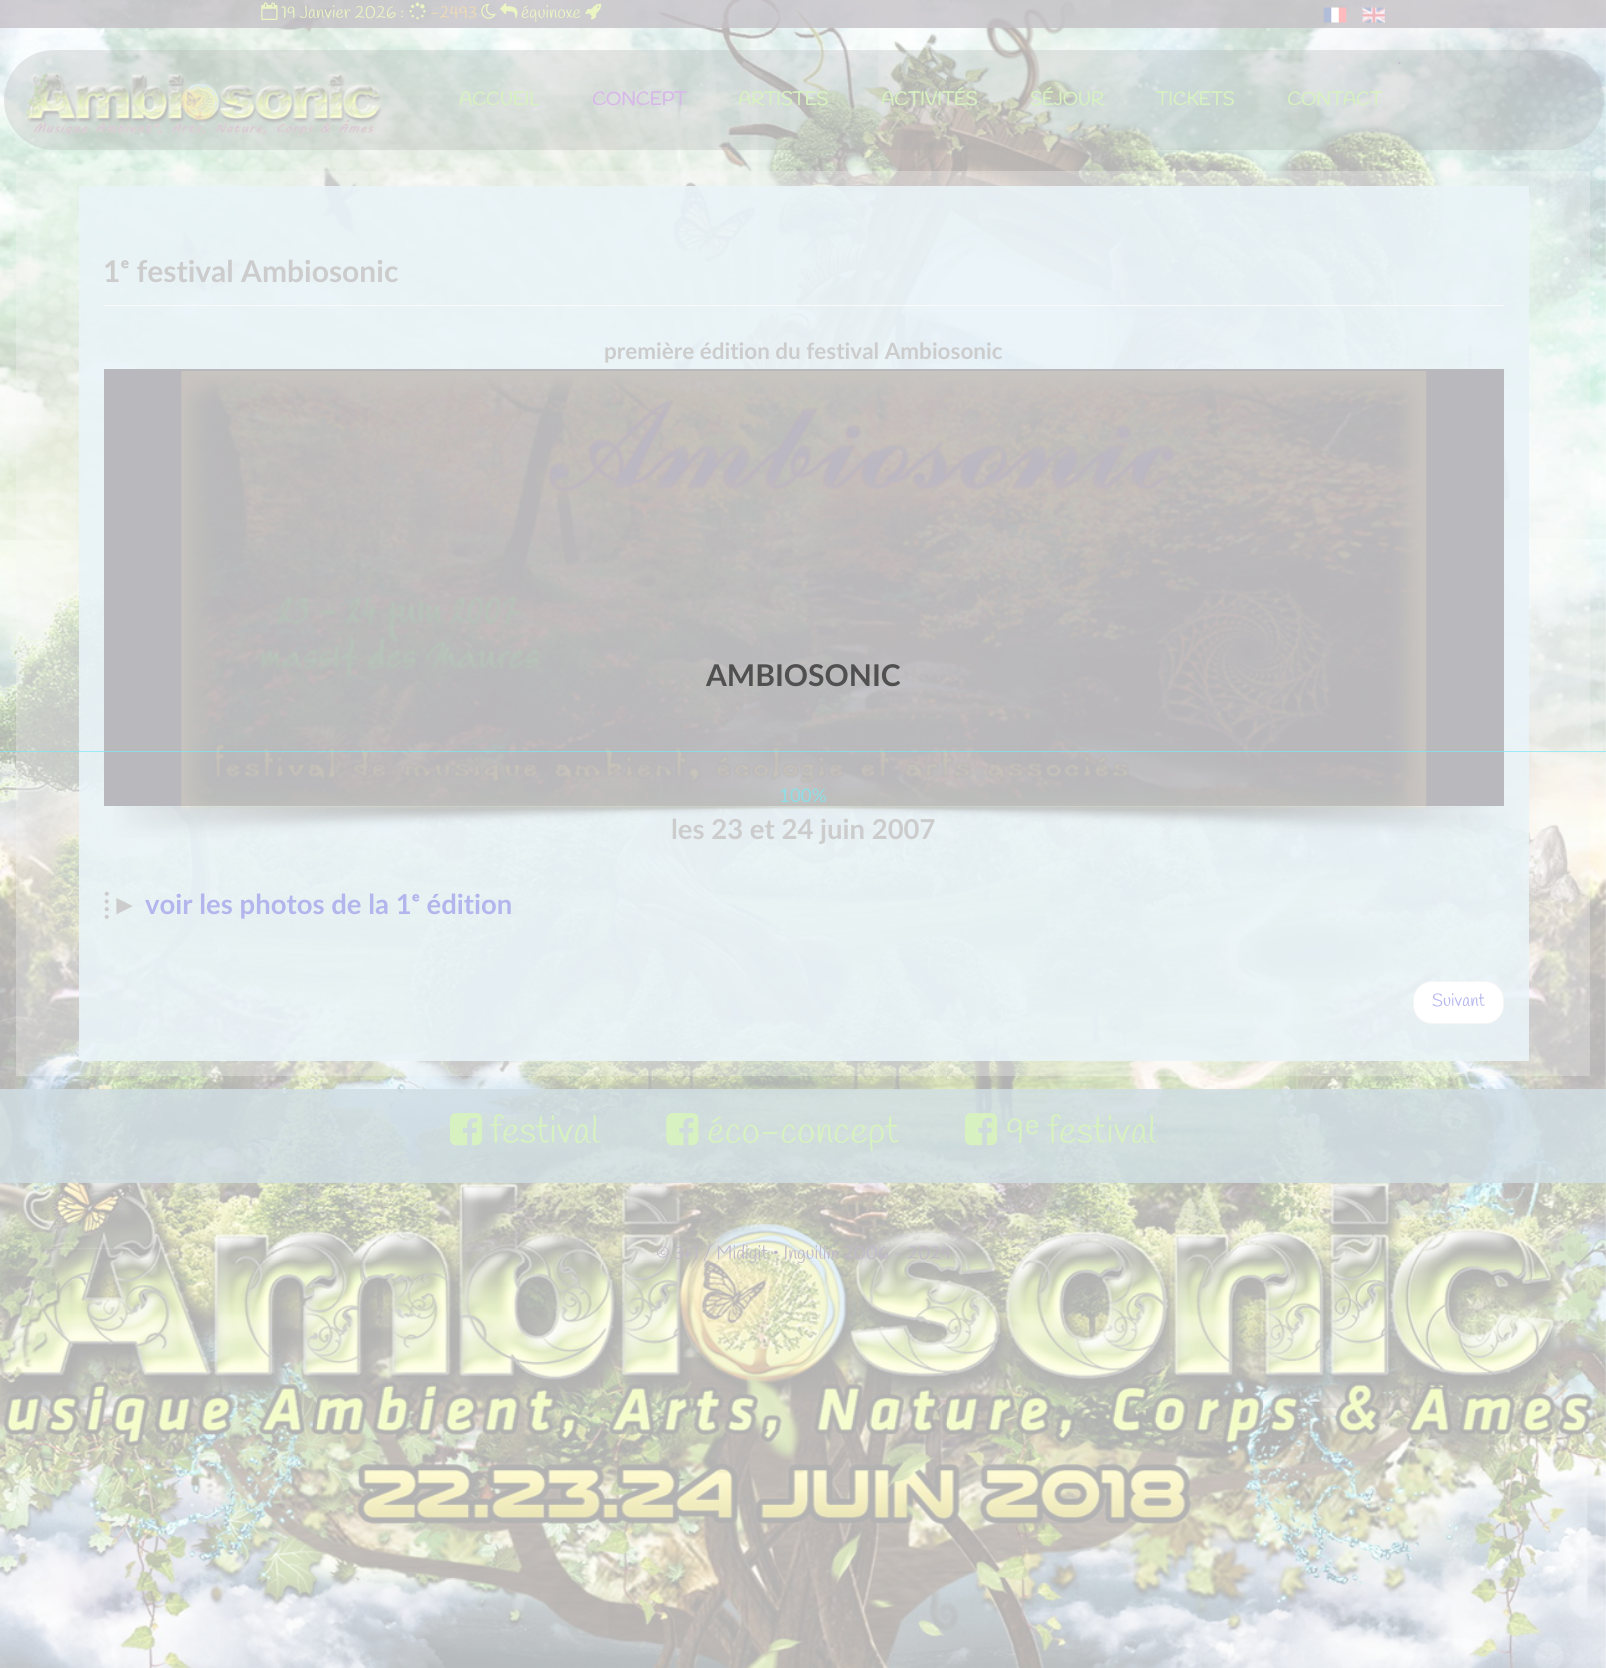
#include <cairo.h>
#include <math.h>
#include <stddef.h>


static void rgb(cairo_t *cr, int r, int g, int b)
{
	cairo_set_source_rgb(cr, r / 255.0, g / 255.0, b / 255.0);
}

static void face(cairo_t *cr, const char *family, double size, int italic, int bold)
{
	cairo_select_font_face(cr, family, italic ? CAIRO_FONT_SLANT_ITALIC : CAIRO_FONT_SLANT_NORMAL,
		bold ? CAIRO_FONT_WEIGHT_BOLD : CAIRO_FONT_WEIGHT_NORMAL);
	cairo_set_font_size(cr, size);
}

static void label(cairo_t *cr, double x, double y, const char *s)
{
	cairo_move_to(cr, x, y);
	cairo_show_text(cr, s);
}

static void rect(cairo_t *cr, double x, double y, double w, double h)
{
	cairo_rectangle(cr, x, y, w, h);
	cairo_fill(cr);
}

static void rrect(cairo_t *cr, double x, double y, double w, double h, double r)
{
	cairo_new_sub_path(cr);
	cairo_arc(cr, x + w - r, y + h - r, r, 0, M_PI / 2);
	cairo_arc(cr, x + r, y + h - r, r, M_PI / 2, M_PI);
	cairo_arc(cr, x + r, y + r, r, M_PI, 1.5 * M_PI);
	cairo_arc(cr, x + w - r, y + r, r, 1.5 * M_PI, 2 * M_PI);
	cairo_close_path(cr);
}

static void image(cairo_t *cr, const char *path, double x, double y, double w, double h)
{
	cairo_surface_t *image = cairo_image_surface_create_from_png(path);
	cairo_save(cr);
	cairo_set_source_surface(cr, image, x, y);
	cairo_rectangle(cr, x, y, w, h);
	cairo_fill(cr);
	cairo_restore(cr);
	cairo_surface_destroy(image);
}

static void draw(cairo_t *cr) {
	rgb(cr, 255, 255, 255);
	cairo_paint(cr);
	image(cr, "image0.png", 0, 0, 1606, 1668);
	cairo_set_source_rgba(cr, 0.776, 0.757, 0.78, 0.79);
	rect(cr, 0, 0, 1606, 28);
	image(cr, "image1.png", 261, 2, 17, 18);
	face(cr, "Handlee", 17.5, 0, 0);
	rgb(cr, 234, 245, 195);
	label(cr, 281, 18, "19 Janvier 2026 :");
	image(cr, "image2.png", 409, 2, 17, 18);
	rgb(cr, 240, 219, 179);
	label(cr, 430, 18, "-2493");
	image(cr, "image3.png", 481, 3, 15, 16);
	image(cr, "image4.png", 500, 3, 18, 16);
	rgb(cr, 234, 245, 195);
	label(cr, 521, 18, "équinoxe");
	image(cr, "image5.png", 585, 3, 17, 17);
	image(cr, "image6.png", 1323, 7, 24, 16);
	image(cr, "image7.png", 1362, 7, 23, 16);
	cairo_set_source_rgba(cr, 0.702, 0.702, 0.702, 0.3);
	rrect(cr, 4, 50, 1600, 100, 50);
	cairo_fill(cr);
	image(cr, "image8.png", 23, 70, 360, 67);
	face(cr, "Liberation Sans", 17.5, 0, 0);
	rgb(cr, 193, 183, 203);
	label(cr, 1397, 68, "∙");
	face(cr, "Handlee", 18.75, 0, 1);
	rgb(cr, 215, 241, 192);
	label(cr, 459, 105, "ACCUEIL");
	rgb(cr, 215, 183, 233);
	label(cr, 592, 105, "CONCEPT");
	rgb(cr, 215, 241, 192);
	label(cr, 738, 105, "ARTISTES");
	label(cr, 881, 105, "ACTIVITÉS");
	label(cr, 1030, 105, "SÉJOUR");
	label(cr, 1156, 105, "TICKETS");
	label(cr, 1287, 105, "CONTACT");
	cairo_set_source_rgba(cr, 0.961, 0.961, 0.961, 0.31);
	rect(cr, 16, 171, 1574, 905);
	cairo_set_source_rgba(cr, 0.914, 0.953, 0.973, 0.87);
	rect(cr, 79, 186, 1450, 875);
	rgb(cr, 250, 250, 250);
	rect(cr, 104, 305, 1400, 1);
	face(cr, "Lato", 30, 0, 1);
	rgb(cr, 204, 204, 204);
	label(cr, 103, 282, "1ᵉ festival Ambiosonic");
	face(cr, "Lato", 22.5, 0, 1);
	label(cr, 604, 359, "première édition du festival Ambiosonic");
	rgb(cr, 185, 184, 188);
	rect(cr, 104, 369, 1400, 437);
	face(cr, "Lato", 27.5, 0, 1);
	rgb(cr, 204, 204, 204);
	label(cr, 671, 839, "les 23 et 24 juin 2007");
	image(cr, "image10.png", 113, 806, 1378, 32);
	image(cr, "image9.png", 181, 371, 1246, 438);
	label(cr, 103, 914, "⁞");
	face(cr, "Liberation Sans", 27.5, 0, 1);
	label(cr, 111, 914, "►");
	face(cr, "Lato", 27.5, 0, 1);
	rgb(cr, 179, 181, 237);
	label(cr, 145, 914, "voir les photos de la 1ᵉ édition");
	rgb(cr, 255, 255, 255);
	rrect(cr, 1413.5, 981.5, 90, 42, 18.5);
	cairo_fill_preserve(cr);
	rgb(cr, 245, 245, 245);
	cairo_set_line_width(cr, 1);
	cairo_stroke(cr);
	face(cr, "Handlee", 17.5, 0, 0);
	rgb(cr, 179, 181, 237);
	label(cr, 1432, 1006, "Suivant");
	face(cr, "Lato", 30, 0, 1);
	rgb(cr, 80, 80, 80);
	label(cr, 706, 686, "AMBIOSONIC");
	cairo_set_source_rgba(cr, 0.475, 0.918, 0.969, 0.7);
	rect(cr, 0, 751, 1606, 1);
	face(cr, "Lato", 18.75, 0, 0);
	rgb(cr, 142, 222, 231);
	label(cr, 779, 802, "100%");
	cairo_set_source_rgba(cr, 0.816, 0.867, 0.89, 0.83);
	rect(cr, 0, 1089, 1606, 94);
	image(cr, "image11.png", 450, 1113, 33, 33);
	face(cr, "Handlee", 37.5, 0, 0);
	rgb(cr, 215, 241, 192);
	label(cr, 490, 1143, "festival");
	image(cr, "image12.png", 666, 1113, 33, 33);
	label(cr, 707, 1143, "éco-concept");
	image(cr, "image13.png", 965, 1113, 33, 33);
	label(cr, 1006, 1143, "9");
	face(cr, "Liberation Sans", 37.5, 0, 0);
	label(cr, 1025, 1143, "ᵉ");
	face(cr, "Handlee", 37.5, 0, 0);
	label(cr, 1047, 1143, "festival");
	face(cr, "Handlee", 18.75, 0, 0);
	rgb(cr, 193, 183, 203);
	label(cr, 656, 1259, "© 3+1 / Midigit • Inguilim 2006 - 2024");
}

int main(void) {
	cairo_surface_t *surface = cairo_image_surface_create(CAIRO_FORMAT_RGB24, 1606, 1668);
	cairo_t *cr = cairo_create(surface);
	cairo_font_options_t *options = cairo_font_options_create();
	cairo_font_options_set_hint_metrics(options, CAIRO_HINT_METRICS_OFF);
	cairo_font_options_set_hint_style(options, CAIRO_HINT_STYLE_NONE);
	cairo_set_font_options(cr, options);
	cairo_set_miter_limit(cr, 4);
	draw(cr);
	cairo_surface_write_to_png(surface, "render.png");
	cairo_font_options_destroy(options);
	cairo_destroy(cr);
	cairo_surface_destroy(surface);
	return 0;
}
